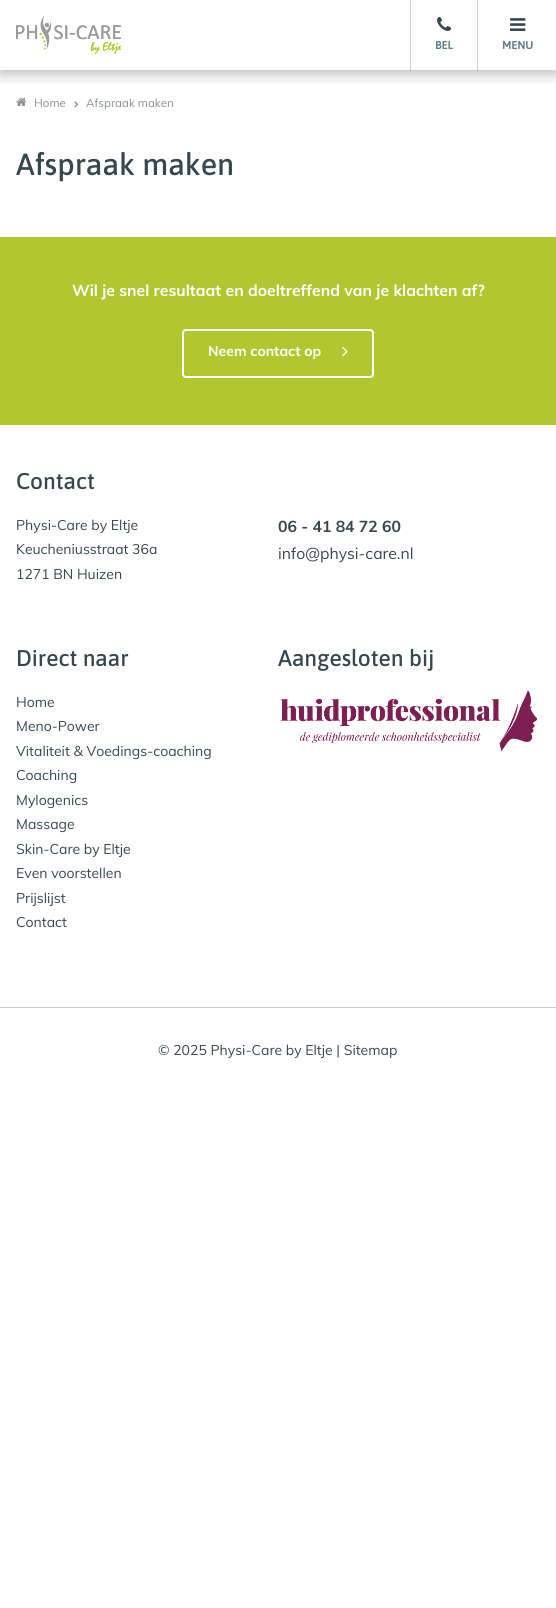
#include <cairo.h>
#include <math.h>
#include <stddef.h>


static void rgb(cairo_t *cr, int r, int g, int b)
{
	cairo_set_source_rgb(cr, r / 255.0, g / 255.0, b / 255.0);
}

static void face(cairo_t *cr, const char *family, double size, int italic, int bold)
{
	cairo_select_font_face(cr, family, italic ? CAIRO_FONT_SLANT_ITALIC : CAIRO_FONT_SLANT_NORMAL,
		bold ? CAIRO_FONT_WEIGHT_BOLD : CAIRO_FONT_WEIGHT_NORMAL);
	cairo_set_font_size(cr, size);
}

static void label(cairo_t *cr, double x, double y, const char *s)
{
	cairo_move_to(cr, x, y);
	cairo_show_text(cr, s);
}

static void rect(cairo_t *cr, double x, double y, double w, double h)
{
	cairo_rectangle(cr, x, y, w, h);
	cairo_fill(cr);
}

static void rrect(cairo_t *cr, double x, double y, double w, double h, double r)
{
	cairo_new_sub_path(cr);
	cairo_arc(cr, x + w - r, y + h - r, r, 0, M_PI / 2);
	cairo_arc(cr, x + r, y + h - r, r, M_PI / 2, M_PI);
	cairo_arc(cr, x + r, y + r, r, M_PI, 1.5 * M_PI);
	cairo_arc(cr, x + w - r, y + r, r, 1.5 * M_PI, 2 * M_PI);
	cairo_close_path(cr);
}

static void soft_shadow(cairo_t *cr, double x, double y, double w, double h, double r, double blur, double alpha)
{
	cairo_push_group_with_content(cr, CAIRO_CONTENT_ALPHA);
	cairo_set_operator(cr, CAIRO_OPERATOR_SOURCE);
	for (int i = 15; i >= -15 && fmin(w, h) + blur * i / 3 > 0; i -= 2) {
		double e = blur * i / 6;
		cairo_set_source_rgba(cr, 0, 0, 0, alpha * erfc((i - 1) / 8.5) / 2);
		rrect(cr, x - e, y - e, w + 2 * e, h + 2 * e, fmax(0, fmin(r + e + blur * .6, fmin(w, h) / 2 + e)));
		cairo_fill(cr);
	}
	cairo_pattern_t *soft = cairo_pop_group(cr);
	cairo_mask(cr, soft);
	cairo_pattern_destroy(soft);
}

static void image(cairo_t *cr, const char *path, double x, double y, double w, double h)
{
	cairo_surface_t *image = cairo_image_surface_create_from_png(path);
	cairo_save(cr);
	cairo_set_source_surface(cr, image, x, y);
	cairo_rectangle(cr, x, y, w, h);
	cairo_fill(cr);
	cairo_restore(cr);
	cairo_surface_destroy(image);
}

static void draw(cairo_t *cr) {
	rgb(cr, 255, 255, 255);
	cairo_paint(cr);
	cairo_save(cr);
	cairo_rectangle(cr, 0, 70, 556, 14);
	cairo_clip(cr);
	rgb(cr, 0, 0, 0);
	soft_shadow(cr, 0, 3, 556, 70, 0, 7.5, 0.3);
	cairo_restore(cr);
	image(cr, "image0.png", 16, 16, 105, 38);
	cairo_set_source_rgba(cr, 0, 0, 0, 0.2);
	rect(cr, 477, 0, 1, 71);
	rect(cr, 410, 0, 1, 71);
	image(cr, "image1.png", 437, 16, 15, 15);
	face(cr, "Asap", 11, 0, 1);
	rgb(cr, 96, 125, 139);
	label(cr, 435, 49, "BEL");
	image(cr, "image2.png", 510, 18, 16, 13);
	label(cr, 502, 49, "MENU");
	image(cr, "image3.png", 16, 97, 11, 9);
	face(cr, "Muli", 11.5, 0, 0);
	rgb(cr, 135, 145, 149);
	label(cr, 34, 107, "Home");
	image(cr, "image4.png", 74, 101, 5, 7);
	label(cr, 86, 107, "Afspraak maken");
	face(cr, "Asap Medium", 30.5, 0, 0);
	rgb(cr, 55, 71, 79);
	label(cr, 16, 175, "Afspraak maken");
	rgb(cr, 177, 199, 50);
	rect(cr, 0, 237, 556, 188);
	face(cr, "Muli", 15.75, 0, 1);
	rgb(cr, 255, 255, 255);
	label(cr, 72, 296, "Wil je snel resultaat en doeltreffend van je klachten af?");
	rrect(cr, 183, 330, 190, 47, 3);
	cairo_stroke(cr);
	face(cr, "Muli", 14, 0, 1);
	label(cr, 208, 356, "Neem contact op");
	image(cr, "image5.png", 342, 347, 6, 10);
	face(cr, "Asap Medium", 22.75, 0, 0);
	rgb(cr, 55, 71, 79);
	label(cr, 16, 489, "Contact");
	face(cr, "Muli", 14, 0, 0);
	label(cr, 16, 530, "Physi-Care by Eltje");
	label(cr, 16, 554, "Keucheniusstraat 36a");
	label(cr, 16, 579, "1271 BN Huizen");
	face(cr, "Muli", 15.75, 0, 1);
	label(cr, 278, 532, "06 - 41 84 72 60");
	face(cr, "Muli", 15.75, 0, 0);
	label(cr, 278, 559, "info@physi-care.nl");
	face(cr, "Asap Medium", 22.75, 0, 0);
	label(cr, 16, 666, "Direct naar");
	face(cr, "Muli", 14, 0, 0);
	label(cr, 16, 707, "Home");
	label(cr, 16, 731, "Meno-Power");
	label(cr, 16, 756, "Vitaliteit & Voedings-coaching");
	label(cr, 16, 780, "Coaching");
	label(cr, 16, 805, "Mylogenics");
	label(cr, 16, 829, "Massage");
	label(cr, 16, 854, "Skin-Care by Eltje");
	label(cr, 16, 878, "Even voorstellen");
	label(cr, 16, 903, "Prijslijst");
	label(cr, 16, 927, "Contact");
	face(cr, "Asap Medium", 22.75, 0, 0);
	label(cr, 278, 666, "Aangesloten bij");
	image(cr, "image6.png", 280, 690, 257, 62);
	rgb(cr, 204, 204, 204);
	rect(cr, 0, 1007, 556, 1);
	face(cr, "Muli", 14, 0, 0);
	rgb(cr, 55, 71, 79);
	label(cr, 158, 1055, "© 2025 Physi-Care by Eltje | Sitemap");
}

int main(void) {
	cairo_surface_t *surface = cairo_image_surface_create(CAIRO_FORMAT_RGB24, 556, 1608);
	cairo_t *cr = cairo_create(surface);
	cairo_font_options_t *options = cairo_font_options_create();
	cairo_font_options_set_hint_metrics(options, CAIRO_HINT_METRICS_OFF);
	cairo_font_options_set_hint_style(options, CAIRO_HINT_STYLE_NONE);
	cairo_set_font_options(cr, options);
	cairo_set_miter_limit(cr, 4);
	draw(cr);
	cairo_surface_write_to_png(surface, "render.png");
	cairo_font_options_destroy(options);
	cairo_destroy(cr);
	cairo_surface_destroy(surface);
	return 0;
}
